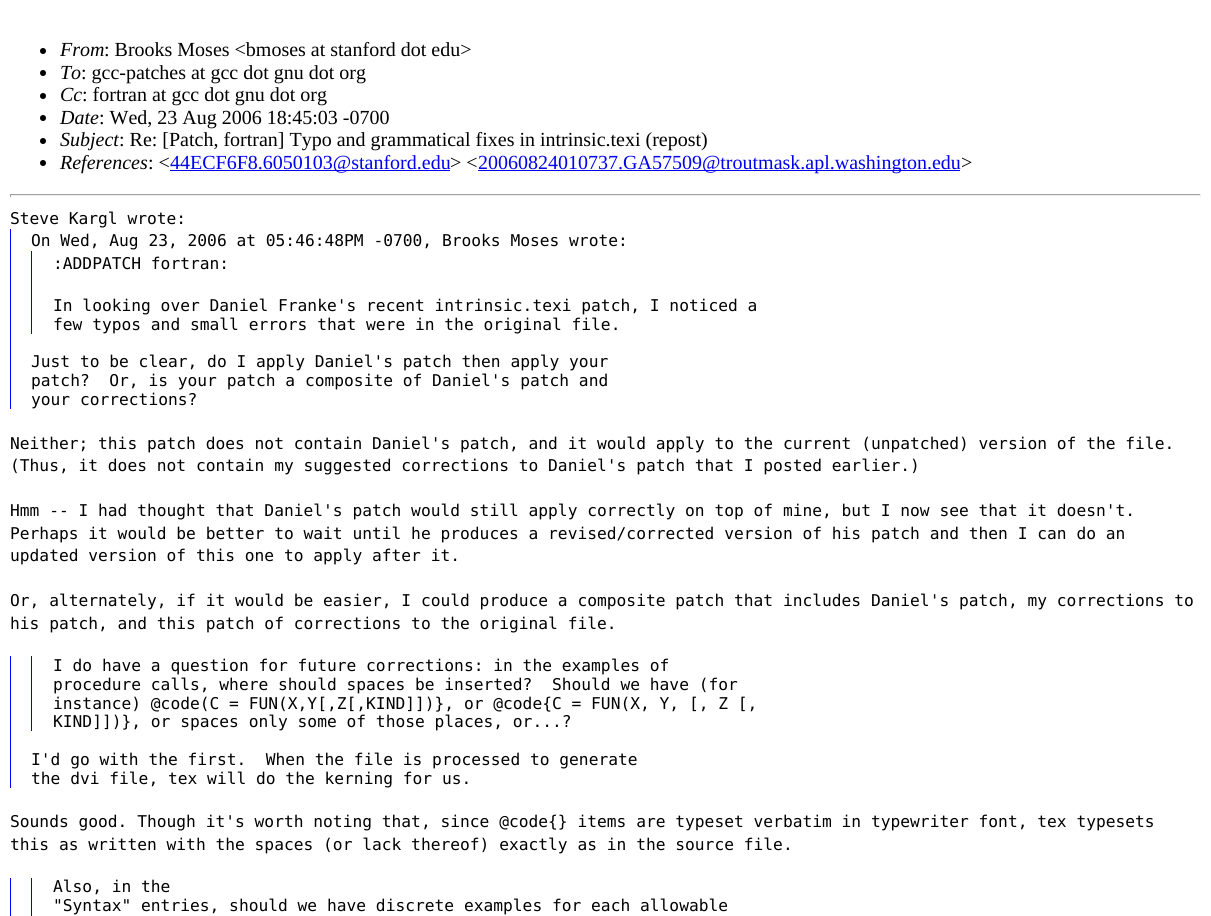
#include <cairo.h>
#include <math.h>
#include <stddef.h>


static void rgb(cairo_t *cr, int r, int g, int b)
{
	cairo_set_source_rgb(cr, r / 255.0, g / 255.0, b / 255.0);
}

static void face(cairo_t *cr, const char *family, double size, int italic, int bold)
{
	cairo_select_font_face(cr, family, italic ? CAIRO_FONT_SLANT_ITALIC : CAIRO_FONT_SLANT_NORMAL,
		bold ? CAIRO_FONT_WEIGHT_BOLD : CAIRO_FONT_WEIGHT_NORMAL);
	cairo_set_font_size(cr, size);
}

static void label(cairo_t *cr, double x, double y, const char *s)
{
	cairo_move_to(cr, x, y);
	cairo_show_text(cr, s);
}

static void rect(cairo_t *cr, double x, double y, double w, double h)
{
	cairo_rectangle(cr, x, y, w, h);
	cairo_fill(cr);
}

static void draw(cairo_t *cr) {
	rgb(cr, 255, 255, 255);
	cairo_paint(cr);
	rgb(cr, 0, 0, 0);
	cairo_arc(cr, 43, 51, 3, 0, 2 * M_PI);
	cairo_fill(cr);
	face(cr, "Liberation Serif", 20, 1, 0);
	label(cr, 60, 56, "From");
	face(cr, "Liberation Serif", 20, 0, 0);
	label(cr, 104, 56, ": Brooks Moses <bmoses at stanford dot edu>");
	cairo_new_path(cr);
	cairo_arc(cr, 43, 73, 3, 0, 2 * M_PI);
	cairo_fill(cr);
	face(cr, "Liberation Serif", 20, 1, 0);
	label(cr, 60, 79, "To");
	face(cr, "Liberation Serif", 20, 0, 0);
	label(cr, 81, 79, ": gcc-patches at gcc dot gnu dot org");
	cairo_new_path(cr);
	cairo_arc(cr, 43, 96, 3, 0, 2 * M_PI);
	cairo_fill(cr);
	face(cr, "Liberation Serif", 20, 1, 0);
	label(cr, 60, 101, "Cc");
	face(cr, "Liberation Serif", 20, 0, 0);
	label(cr, 82, 101, ": fortran at gcc dot gnu dot org");
	cairo_new_path(cr);
	cairo_arc(cr, 43, 118, 3, 0, 2 * M_PI);
	cairo_fill(cr);
	face(cr, "Liberation Serif", 20, 1, 0);
	label(cr, 60, 124, "Date");
	face(cr, "Liberation Serif", 20, 0, 0);
	label(cr, 99, 124, ": Wed, 23 Aug 2006 18:45:03 -0700");
	cairo_new_path(cr);
	cairo_arc(cr, 43, 141, 3, 0, 2 * M_PI);
	cairo_fill(cr);
	face(cr, "Liberation Serif", 20, 1, 0);
	label(cr, 60, 146, "Subject");
	face(cr, "Liberation Serif", 20, 0, 0);
	label(cr, 119, 146, ": Re: [Patch, fortran] Typo and grammatical fixes in intrinsic.texi (repost)");
	cairo_new_path(cr);
	cairo_arc(cr, 43, 163, 3, 0, 2 * M_PI);
	cairo_fill(cr);
	face(cr, "Liberation Serif", 20, 1, 0);
	label(cr, 60, 169, "References");
	face(cr, "Liberation Serif", 20, 0, 0);
	label(cr, 148, 169, ": <");
	rgb(cr, 0, 0, 238);
	rect(cr, 170, 170, 280, 1);
	label(cr, 170, 169, "44ECF6F8.6050103@stanford.edu");
	rgb(cr, 0, 0, 0);
	label(cr, 450, 169, "> <");
	rgb(cr, 0, 0, 238);
	rect(cr, 478, 170, 482, 1);
	label(cr, 478, 169, "20060824010737.GA57509@troutmask.apl.washington.edu");
	rgb(cr, 0, 0, 0);
	label(cr, 961, 169, ">");
	rgb(cr, 159, 159, 159);
	rect(cr, 10, 194, 1191, 1);
	rgb(cr, 238, 238, 238);
	rect(cr, 1200, 194, 1, 3);
	rect(cr, 10, 195, 1191, 1);
	rgb(cr, 159, 159, 159);
	rect(cr, 10, 194, 1, 3);
	face(cr, "DejaVu Sans Mono", 16.25, 0, 0);
	rgb(cr, 0, 0, 0);
	label(cr, 10, 224, "Steve Kargl wrote:");
	rgb(cr, 0, 0, 255);
	rect(cr, 10, 229, 1, 180);
	rgb(cr, 0, 0, 0);
	label(cr, 31, 246, "On Wed, Aug 23, 2006 at 05:46:48PM -0700, Brooks Moses wrote:");
	rgb(cr, 0, 0, 255);
	rect(cr, 31, 251, 1, 83);
	rgb(cr, 0, 0, 0);
	label(cr, 53, 269, ":ADDPATCH fortran:");
	label(cr, 53, 311, "In looking over Daniel Franke's recent intrinsic.texi patch, I noticed a");
	label(cr, 53, 330, "few typos and small errors that were in the original file.");
	label(cr, 31, 367, "Just to be clear, do I apply Daniel's patch then apply your");
	label(cr, 31, 386, "patch?  Or, is your patch a composite of Daniel's patch and");
	label(cr, 31, 405, "your corrections?");
	label(cr, 10, 449, "Neither; this patch does not contain Daniel's patch, and it would apply to the current (unpatched) version of the file.");
	label(cr, 10, 471, "(Thus, it does not contain my suggested corrections to Daniel's patch that I posted earlier.)");
	label(cr, 10, 516, "Hmm -- I had thought that Daniel's patch would still apply correctly on top of mine, but I now see that it doesn't.");
	label(cr, 10, 539, "Perhaps it would be better to wait until he produces a revised/corrected version of his patch and then I can do an");
	label(cr, 10, 561, "updated version of this one to apply after it.");
	label(cr, 10, 606, "Or, alternately, if it would be easier, I could produce a composite patch that includes Daniel's patch, my corrections to");
	label(cr, 10, 629, "his patch, and this patch of corrections to the original file.");
	rgb(cr, 0, 0, 255);
	rect(cr, 10, 656, 1, 132);
	rect(cr, 31, 656, 1, 75);
	rgb(cr, 0, 0, 0);
	label(cr, 53, 671, "I do have a question for future corrections: in the examples of");
	label(cr, 53, 690, "procedure calls, where should spaces be inserted?  Should we have (for");
	label(cr, 53, 709, "instance) @code(C = FUN(X,Y[,Z[,KIND]])}, or @code{C = FUN(X, Y, [, Z [,");
	label(cr, 53, 727, "KIND]])}, or spaces only some of those places, or...?");
	label(cr, 31, 765, "I'd go with the first.  When the file is processed to generate");
	label(cr, 31, 784, "the dvi file, tex will do the kerning for us.");
	label(cr, 10, 827, "Sounds good. Though it's worth noting that, since @code{} items are typeset verbatim in typewriter font, tex typesets");
	label(cr, 10, 850, "this as written with the spaces (or lack thereof) exactly as in the source file.");
	rgb(cr, 0, 0, 255);
	rect(cr, 10, 878, 1, 38);
	rect(cr, 31, 878, 1, 38);
	rgb(cr, 0, 0, 0);
	label(cr, 53, 892, "Also, in the");
	label(cr, 53, 911, "\"Syntax\" entries, should we have discrete examples for each allowable");
}

int main(void) {
	cairo_surface_t *surface = cairo_image_surface_create(CAIRO_FORMAT_RGB24, 1211, 916);
	cairo_t *cr = cairo_create(surface);
	cairo_font_options_t *options = cairo_font_options_create();
	cairo_font_options_set_hint_metrics(options, CAIRO_HINT_METRICS_OFF);
	cairo_font_options_set_hint_style(options, CAIRO_HINT_STYLE_NONE);
	cairo_set_font_options(cr, options);
	cairo_set_miter_limit(cr, 4);
	draw(cr);
	cairo_surface_write_to_png(surface, "render.png");
	cairo_font_options_destroy(options);
	cairo_destroy(cr);
	cairo_surface_destroy(surface);
	return 0;
}
